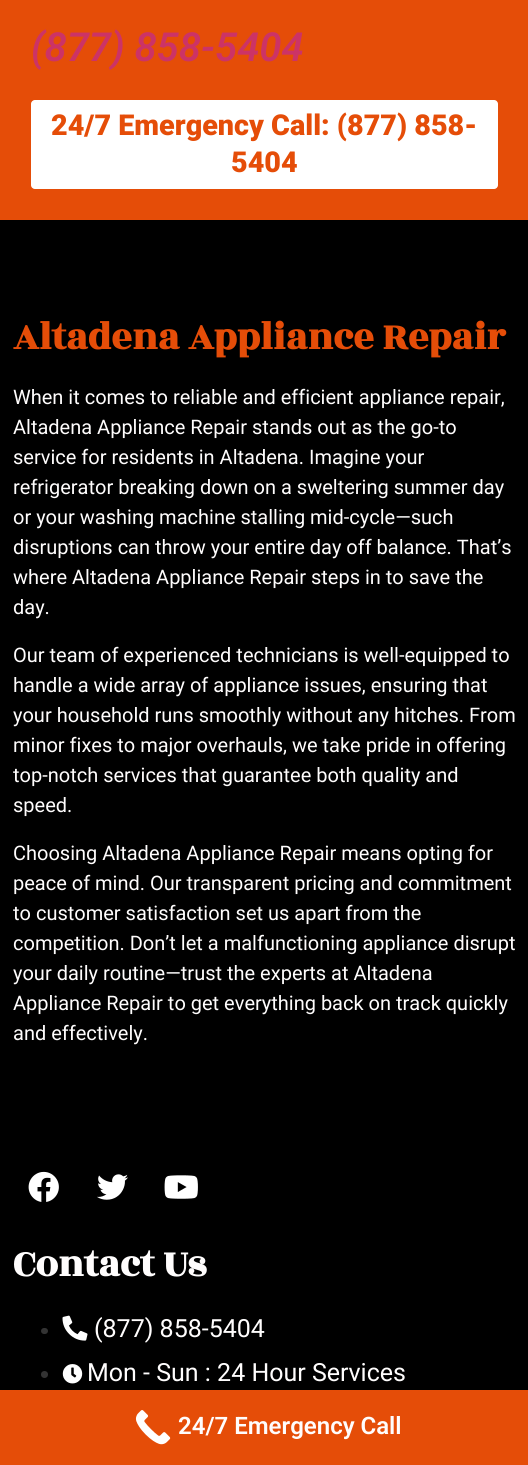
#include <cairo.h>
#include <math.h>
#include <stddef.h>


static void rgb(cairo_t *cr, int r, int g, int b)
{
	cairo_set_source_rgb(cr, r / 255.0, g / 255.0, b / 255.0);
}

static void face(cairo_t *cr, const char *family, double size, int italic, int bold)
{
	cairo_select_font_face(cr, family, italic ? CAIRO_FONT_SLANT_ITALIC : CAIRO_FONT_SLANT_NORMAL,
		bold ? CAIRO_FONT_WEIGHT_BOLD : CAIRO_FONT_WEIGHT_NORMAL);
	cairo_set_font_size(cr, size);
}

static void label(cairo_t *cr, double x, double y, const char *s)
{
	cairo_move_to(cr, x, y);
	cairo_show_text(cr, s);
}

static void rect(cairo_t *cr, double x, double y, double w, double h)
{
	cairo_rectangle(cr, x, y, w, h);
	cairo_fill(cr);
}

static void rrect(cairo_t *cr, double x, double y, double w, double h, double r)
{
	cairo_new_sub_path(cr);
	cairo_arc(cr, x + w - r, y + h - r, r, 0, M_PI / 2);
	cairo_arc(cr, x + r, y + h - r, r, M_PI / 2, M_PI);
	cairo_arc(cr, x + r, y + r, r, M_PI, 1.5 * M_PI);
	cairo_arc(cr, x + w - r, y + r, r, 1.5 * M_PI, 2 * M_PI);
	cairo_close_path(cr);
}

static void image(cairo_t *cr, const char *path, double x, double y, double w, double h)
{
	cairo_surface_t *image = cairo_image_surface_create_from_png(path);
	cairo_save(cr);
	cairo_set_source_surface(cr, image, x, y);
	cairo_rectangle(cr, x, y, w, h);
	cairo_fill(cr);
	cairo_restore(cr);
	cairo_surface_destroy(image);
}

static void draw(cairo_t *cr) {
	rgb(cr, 229, 77, 8);
	cairo_paint(cr);
	face(cr, "Roboto SemiBold", 40, 1, 0);
	rgb(cr, 204, 51, 102);
	label(cr, 31, 61, "(877) 858-5404");
	rgb(cr, 255, 255, 255);
	rrect(cr, 31, 100, 467, 89, 4);
	cairo_fill(cr);
	face(cr, "Roboto Black", 28.75, 0, 0);
	rgb(cr, 229, 77, 8);
	label(cr, 51, 135, "24/7 Emergency Call: (877) 858-");
	label(cr, 231, 172, "5404");
	rgb(cr, 0, 0, 0);
	rect(cr, 0, 220, 528, 1170);
	face(cr, "Rozha One", 40, 0, 1);
	rgb(cr, 229, 77, 8);
	label(cr, 13, 349, "Altadena Appliance Repair");
	face(cr, "Roboto", 20, 0, 0);
	rgb(cr, 255, 253, 253);
	label(cr, 13, 404, "When it comes to reliable and efficient appliance repair,");
	label(cr, 13, 434, "Altadena Appliance Repair stands out as the go-to");
	label(cr, 13, 464, "service for residents in Altadena. Imagine your");
	label(cr, 13, 494, "refrigerator breaking down on a sweltering summer day");
	label(cr, 13, 524, "or your washing machine stalling mid-cycle—such");
	label(cr, 13, 554, "disruptions can throw your entire day off balance. That’s");
	label(cr, 13, 584, "where Altadena Appliance Repair steps in to save the");
	label(cr, 13, 614, "day.");
	label(cr, 13, 662, "Our team of experienced technicians is well-equipped to");
	label(cr, 13, 692, "handle a wide array of appliance issues, ensuring that");
	label(cr, 13, 722, "your household runs smoothly without any hitches. From");
	label(cr, 13, 752, "minor fixes to major overhauls, we take pride in offering");
	label(cr, 13, 782, "top-notch services that guarantee both quality and");
	label(cr, 13, 812, "speed.");
	label(cr, 13, 860, "Choosing Altadena Appliance Repair means opting for");
	label(cr, 13, 890, "peace of mind. Our transparent pricing and commitment");
	label(cr, 13, 920, "to customer satisfaction set us apart from the");
	label(cr, 13, 950, "competition. Don’t let a malfunctioning appliance disrupt");
	label(cr, 13, 980, "your daily routine—trust the experts at Altadena");
	label(cr, 13, 1010, "Appliance Repair to get everything back on track quickly");
	label(cr, 13, 1040, "and effectively.");
	image(cr, "image0.png", 28, 1171, 31, 31);
	image(cr, "image1.png", 97, 1174, 31, 26);
	image(cr, "image2.png", 164, 1175, 34, 24);
	face(cr, "Rozha One", 40, 0, 1);
	label(cr, 13, 1276, "Contact Us");
	rgb(cr, 51, 51, 51);
	rrect(cr, 41, 1328, 7, 6, 3);
	cairo_fill(cr);
	image(cr, "image3.png", 62, 1315, 26, 26);
	face(cr, "Roboto", 25, 0, 0);
	rgb(cr, 255, 253, 253);
	label(cr, 94, 1337, "(877) 858-5404");
	rgb(cr, 51, 51, 51);
	cairo_new_path(cr);
	cairo_arc(cr, 44.5, 1374.5, 3.5, 0, 2 * M_PI);
	cairo_fill(cr);
	image(cr, "image4.png", 62, 1364, 21, 20);
	rgb(cr, 255, 253, 253);
	label(cr, 87, 1381, "Mon - Sun : 24 Hour Services");
	image(cr, "image5.png", 135, 1410, 36, 35);
	face(cr, "Roboto SemiBold", 24, 0, 0);
	label(cr, 178, 1434, "24/7 Emergency Call");
}

int main(void) {
	cairo_surface_t *surface = cairo_image_surface_create(CAIRO_FORMAT_RGB24, 528, 1465);
	cairo_t *cr = cairo_create(surface);
	cairo_font_options_t *options = cairo_font_options_create();
	cairo_font_options_set_hint_metrics(options, CAIRO_HINT_METRICS_OFF);
	cairo_font_options_set_hint_style(options, CAIRO_HINT_STYLE_NONE);
	cairo_set_font_options(cr, options);
	cairo_set_miter_limit(cr, 4);
	draw(cr);
	cairo_surface_write_to_png(surface, "render.png");
	cairo_font_options_destroy(options);
	cairo_destroy(cr);
	cairo_surface_destroy(surface);
	return 0;
}
